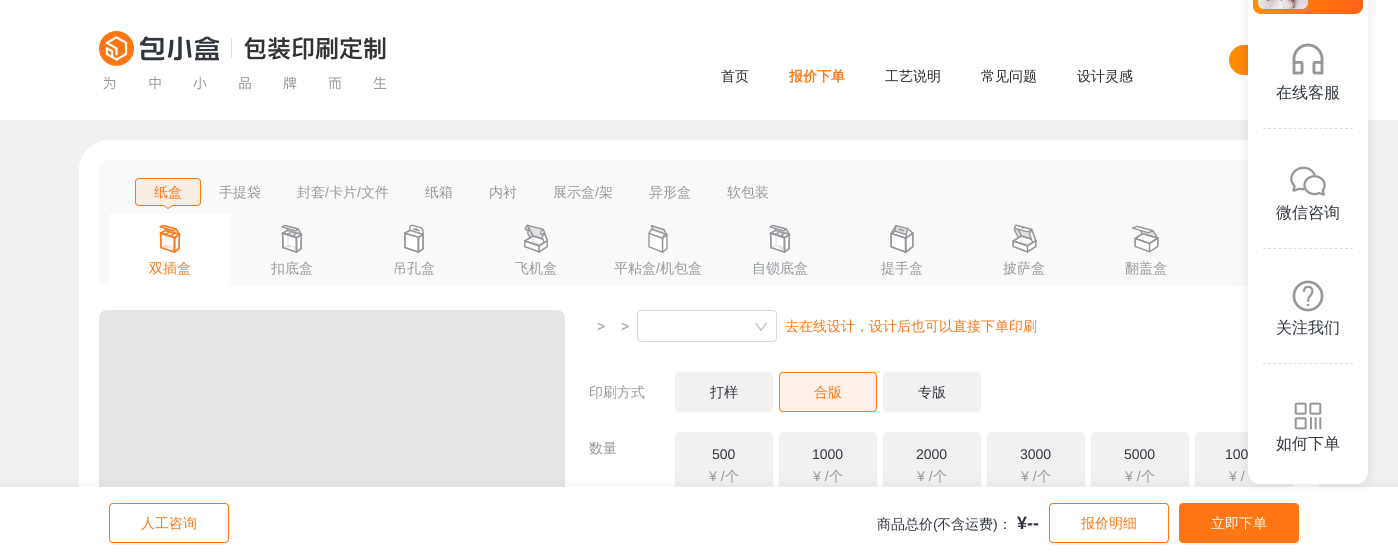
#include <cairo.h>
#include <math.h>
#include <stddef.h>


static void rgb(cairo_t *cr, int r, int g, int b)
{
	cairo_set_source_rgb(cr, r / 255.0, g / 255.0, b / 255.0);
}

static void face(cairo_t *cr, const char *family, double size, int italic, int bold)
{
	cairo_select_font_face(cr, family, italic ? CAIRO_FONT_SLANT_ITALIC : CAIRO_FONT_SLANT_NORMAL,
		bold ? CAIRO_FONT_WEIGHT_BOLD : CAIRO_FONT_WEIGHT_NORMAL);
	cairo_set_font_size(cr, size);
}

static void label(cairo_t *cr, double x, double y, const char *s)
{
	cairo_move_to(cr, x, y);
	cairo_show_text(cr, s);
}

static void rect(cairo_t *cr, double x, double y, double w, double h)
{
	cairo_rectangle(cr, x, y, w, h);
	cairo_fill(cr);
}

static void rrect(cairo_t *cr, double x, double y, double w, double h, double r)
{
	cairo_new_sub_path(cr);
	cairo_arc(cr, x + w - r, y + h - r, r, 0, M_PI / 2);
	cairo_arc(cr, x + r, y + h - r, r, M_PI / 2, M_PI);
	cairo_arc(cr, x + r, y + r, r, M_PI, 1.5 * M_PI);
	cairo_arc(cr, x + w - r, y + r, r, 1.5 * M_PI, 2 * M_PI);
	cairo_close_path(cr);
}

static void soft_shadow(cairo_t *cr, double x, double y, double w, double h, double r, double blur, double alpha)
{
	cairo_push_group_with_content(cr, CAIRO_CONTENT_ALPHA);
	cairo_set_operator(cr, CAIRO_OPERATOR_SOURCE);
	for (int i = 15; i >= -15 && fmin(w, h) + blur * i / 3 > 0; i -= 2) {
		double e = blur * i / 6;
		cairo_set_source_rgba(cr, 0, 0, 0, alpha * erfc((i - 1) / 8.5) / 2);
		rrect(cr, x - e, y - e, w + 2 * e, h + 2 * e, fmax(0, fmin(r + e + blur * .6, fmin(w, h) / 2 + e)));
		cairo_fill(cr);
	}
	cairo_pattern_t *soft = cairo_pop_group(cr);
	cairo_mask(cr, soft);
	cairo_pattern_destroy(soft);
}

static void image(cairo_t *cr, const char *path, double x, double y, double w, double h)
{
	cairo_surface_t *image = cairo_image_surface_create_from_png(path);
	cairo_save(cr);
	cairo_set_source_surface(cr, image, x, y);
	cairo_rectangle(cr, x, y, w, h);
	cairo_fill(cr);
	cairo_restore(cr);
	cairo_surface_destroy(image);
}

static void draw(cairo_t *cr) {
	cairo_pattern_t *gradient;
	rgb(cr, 241, 241, 242);
	cairo_paint(cr);
	rgb(cr, 255, 255, 255);
	rect(cr, 0, 0, 1398, 120);
	image(cr, "image0.png", 99, 31, 288, 59);
	gradient = cairo_pattern_create_linear(1299, 60, 1229, 60);
	cairo_pattern_add_color_stop_rgba(gradient, 0, 1, 0.384, 0.102, 1);
	cairo_pattern_add_color_stop_rgba(gradient, 1, 1, 0.561, 0, 1);
	cairo_set_source(cr, gradient);
	cairo_pattern_destroy(gradient);
	rrect(cr, 1229, 45, 70, 30, 15);
	cairo_fill(cr);
	face(cr, "WenQuanYi Zen Hei Medium", 14, 0, 0);
	rgb(cr, 38, 38, 38);
	label(cr, 721, 81, "首页");
	face(cr, "WenQuanYi Zen Hei", 14, 0, 1);
	rgb(cr, 255, 119, 20);
	label(cr, 789, 81, "报价下单");
	face(cr, "WenQuanYi Zen Hei Medium", 14, 0, 0);
	rgb(cr, 38, 38, 38);
	label(cr, 885, 81, "工艺说明");
	label(cr, 981, 81, "常见问题");
	label(cr, 1077, 81, "设计灵感");
	rgb(cr, 255, 255, 255);
	cairo_new_path(cr);
	cairo_move_to(cr, 109, 140);
	cairo_line_to(cr, 1289, 140);
	cairo_curve_to(cr, 1305.5, 140, 1319, 153.5, 1319, 170);
	cairo_line_to(cr, 1319, 559);
	cairo_line_to(cr, 79, 559);
	cairo_line_to(cr, 79, 170);
	cairo_curve_to(cr, 79, 153.5, 92.5, 140, 109, 140);
	cairo_close_path(cr);
	cairo_fill(cr);
	rgb(cr, 248, 249, 249);
	rrect(cr, 99, 160, 1200, 126, 10);
	cairo_fill(cr);
	rgb(cr, 249, 236, 226);
	rrect(cr, 135.5, 178.5, 65, 27, 3.5);
	cairo_fill_preserve(cr);
	rgb(cr, 255, 119, 20);
	cairo_set_line_width(cr, 1);
	cairo_stroke(cr);
	label(cr, 154, 197, "纸盒");
	cairo_new_path(cr);
	cairo_move_to(cr, 162, 205);
	cairo_line_to(cr, 174, 205);
	cairo_line_to(cr, 168, 209);
	cairo_close_path(cr);
	cairo_fill(cr);
	rgb(cr, 255, 241, 231);
	cairo_new_path(cr);
	cairo_move_to(cr, 162, 204);
	cairo_line_to(cr, 174, 204);
	cairo_line_to(cr, 168, 208);
	cairo_close_path(cr);
	cairo_fill(cr);
	rgb(cr, 149, 151, 156);
	label(cr, 219, 197, "手提袋");
	label(cr, 297, 197, "封套");
	face(cr, "Liberation Sans", 14, 0, 0);
	label(cr, 325, 197, "/");
	face(cr, "WenQuanYi Zen Hei Medium", 14, 0, 0);
	label(cr, 329, 197, "卡片");
	face(cr, "Liberation Sans", 14, 0, 0);
	label(cr, 357, 197, "/");
	face(cr, "WenQuanYi Zen Hei Medium", 14, 0, 0);
	label(cr, 361, 197, "文件");
	label(cr, 425, 197, "纸箱");
	label(cr, 489, 197, "内衬");
	label(cr, 553, 197, "展示盒");
	face(cr, "Liberation Sans", 14, 0, 0);
	label(cr, 595, 197, "/");
	face(cr, "WenQuanYi Zen Hei Medium", 14, 0, 0);
	label(cr, 599, 197, "架");
	label(cr, 649, 197, "异形盒");
	label(cr, 727, 197, "软包装");
	rgb(cr, 255, 255, 255);
	rect(cr, 109, 214, 122, 72);
	image(cr, "image1.png", 159, 224, 22, 29);
	rgb(cr, 255, 119, 20);
	label(cr, 149, 273, "双插盒");
	image(cr, "image2.png", 281, 224, 22, 29);
	rgb(cr, 149, 151, 156);
	label(cr, 271, 273, "扣底盒");
	image(cr, "image3.png", 404, 224, 20, 29);
	label(cr, 393, 273, "吊孔盒");
	image(cr, "image4.png", 524, 224, 24, 29);
	label(cr, 515, 273, "飞机盒");
	image(cr, "image5.png", 648, 224, 20, 29);
	label(cr, 614, 273, "平粘盒");
	face(cr, "Liberation Sans", 14, 0, 0);
	label(cr, 656, 273, "/");
	face(cr, "WenQuanYi Zen Hei Medium", 14, 0, 0);
	label(cr, 660, 273, "机包盒");
	image(cr, "image6.png", 769, 224, 22, 29);
	label(cr, 752, 273, "自锁底盒");
	image(cr, "image7.png", 890, 225, 24, 28);
	label(cr, 881, 273, "提手盒");
	image(cr, "image8.png", 1012, 224, 25, 29);
	label(cr, 1003, 273, "披萨盒");
	image(cr, "image9.png", 1131, 225, 28, 28);
	label(cr, 1125, 273, "翻盖盒");
	rgb(cr, 230, 230, 230);
	cairo_new_path(cr);
	cairo_move_to(cr, 107, 310);
	cairo_line_to(cr, 557, 310);
	cairo_curve_to(cr, 561.5, 310, 565, 313.5, 565, 318);
	cairo_line_to(cr, 565, 559);
	cairo_line_to(cr, 99, 559);
	cairo_line_to(cr, 99, 318);
	cairo_curve_to(cr, 99, 313.5, 102.5, 310, 107, 310);
	cairo_close_path(cr);
	cairo_fill(cr);
	face(cr, "Liberation Sans", 14, 0, 0);
	rgb(cr, 140, 140, 140);
	label(cr, 597, 331, ">");
	label(cr, 621, 331, ">");
	rrect(cr, 637.5, 310.5, 139, 31, 3.5);
	rgb(cr, 217, 217, 217);
	cairo_stroke(cr);
	image(cr, "image10.png", 755, 323, 12, 8);
	face(cr, "WenQuanYi Zen Hei Medium", 14, 0, 0);
	rgb(cr, 255, 119, 20);
	label(cr, 785, 331, "去在线设计，设计后也可以直接下单印刷");
	rgb(cr, 149, 151, 156);
	label(cr, 589, 397, "印刷方式");
	rgb(cr, 241, 241, 242);
	rrect(cr, 675, 372, 98, 40, 4);
	cairo_fill(cr);
	rgb(cr, 49, 54, 63);
	label(cr, 710, 397, "打样");
	rgb(cr, 255, 241, 232);
	rrect(cr, 779.5, 372.5, 97, 39, 3.5);
	cairo_fill_preserve(cr);
	rgb(cr, 255, 119, 20);
	cairo_stroke(cr);
	label(cr, 814, 397, "合版");
	rgb(cr, 241, 241, 242);
	rrect(cr, 883, 372, 98, 40, 4);
	cairo_fill(cr);
	rgb(cr, 49, 54, 63);
	label(cr, 918, 397, "专版");
	rgb(cr, 149, 151, 156);
	label(cr, 589, 453, "数量");
	rgb(cr, 241, 241, 242);
	rrect(cr, 675, 432, 98, 66, 4);
	cairo_fill(cr);
	face(cr, "Liberation Sans", 14, 0, 0);
	rgb(cr, 49, 54, 63);
	label(cr, 712, 459, "500");
	rgb(cr, 149, 151, 156);
	label(cr, 709, 481, "¥ /");
	face(cr, "WenQuanYi Zen Hei Medium", 14, 0, 0);
	label(cr, 725, 481, "个");
	rgb(cr, 241, 241, 242);
	rrect(cr, 779, 432, 98, 66, 4);
	cairo_fill(cr);
	face(cr, "Liberation Sans", 14, 0, 0);
	rgb(cr, 49, 54, 63);
	label(cr, 812, 459, "1000");
	rgb(cr, 149, 151, 156);
	label(cr, 813, 481, "¥ /");
	face(cr, "WenQuanYi Zen Hei Medium", 14, 0, 0);
	label(cr, 829, 481, "个");
	rgb(cr, 241, 241, 242);
	rrect(cr, 883, 432, 98, 66, 4);
	cairo_fill(cr);
	face(cr, "Liberation Sans", 14, 0, 0);
	rgb(cr, 49, 54, 63);
	label(cr, 916, 459, "2000");
	rgb(cr, 149, 151, 156);
	label(cr, 917, 481, "¥ /");
	face(cr, "WenQuanYi Zen Hei Medium", 14, 0, 0);
	label(cr, 933, 481, "个");
	rgb(cr, 241, 241, 242);
	rrect(cr, 987, 432, 98, 66, 4);
	cairo_fill(cr);
	face(cr, "Liberation Sans", 14, 0, 0);
	rgb(cr, 49, 54, 63);
	label(cr, 1020, 459, "3000");
	rgb(cr, 149, 151, 156);
	label(cr, 1021, 481, "¥ /");
	face(cr, "WenQuanYi Zen Hei Medium", 14, 0, 0);
	label(cr, 1037, 481, "个");
	rgb(cr, 241, 241, 242);
	rrect(cr, 1091, 432, 98, 66, 4);
	cairo_fill(cr);
	face(cr, "Liberation Sans", 14, 0, 0);
	rgb(cr, 49, 54, 63);
	label(cr, 1124, 459, "5000");
	rgb(cr, 149, 151, 156);
	label(cr, 1125, 481, "¥ /");
	face(cr, "WenQuanYi Zen Hei Medium", 14, 0, 0);
	label(cr, 1141, 481, "个");
	rgb(cr, 241, 241, 242);
	rrect(cr, 1195, 432, 98, 66, 4);
	cairo_fill(cr);
	face(cr, "Liberation Sans", 14, 0, 0);
	rgb(cr, 49, 54, 63);
	label(cr, 1225, 459, "100");
	rgb(cr, 149, 151, 156);
	label(cr, 1229, 481, "¥ /");
	rgb(cr, 0, 0, 0);
	soft_shadow(cr, 0, 483, 1398, 72, 0, 4, 0.04);
	rgb(cr, 255, 255, 255);
	rect(cr, 0, 487, 1398, 72);
	rgb(cr, 0, 0, 0);
	soft_shadow(cr, 1248, -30, 120, 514, 12, 6, 0.1);
	rgb(cr, 255, 255, 255);
	rrect(cr, 1248, -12, 120, 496, 12);
	cairo_fill(cr);
	gradient = cairo_pattern_create_linear(1363, -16, 1253, -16);
	cairo_pattern_add_color_stop_rgba(gradient, 0, 1, 0.384, 0.102, 1);
	cairo_pattern_add_color_stop_rgba(gradient, 1, 1, 0.561, 0, 1);
	cairo_set_source(cr, gradient);
	cairo_pattern_destroy(gradient);
	rrect(cr, 1253, -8, 110, 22, 8);
	cairo_fill(cr);
	image(cr, "image11.png", 1258, 0, 50, 9);
	image(cr, "image12.png", 1292, 43, 32, 32);
	face(cr, "WenQuanYi Zen Hei Medium", 16, 0, 0);
	rgb(cr, 49, 54, 63);
	label(cr, 1276, 98, "在线客服");
	cairo_new_path(cr);
	cairo_move_to(cr, 1263, 128.5);
	cairo_line_to(cr, 1353, 128.5);
	rgb(cr, 223, 223, 224);
	cairo_set_dash(cr, (double[]){3, 2.12}, 2, 0);
	cairo_stroke(cr);
	image(cr, "image13.png", 1290, 166, 36, 30);
	rgb(cr, 49, 54, 63);
	label(cr, 1276, 218, "微信咨询");
	cairo_new_path(cr);
	cairo_move_to(cr, 1263, 248.5);
	cairo_line_to(cr, 1353, 248.5);
	rgb(cr, 223, 223, 224);
	cairo_stroke(cr);
	image(cr, "image14.png", 1292, 280, 32, 32);
	rgb(cr, 49, 54, 63);
	label(cr, 1276, 333, "关注我们");
	cairo_new_path(cr);
	cairo_move_to(cr, 1263, 363.5);
	cairo_line_to(cr, 1353, 363.5);
	rgb(cr, 223, 223, 224);
	cairo_stroke(cr);
	image(cr, "image15.png", 1294, 402, 28, 28);
	rgb(cr, 49, 54, 63);
	label(cr, 1276, 449, "如何下单");
	rgb(cr, 244, 244, 244);
	cairo_new_path(cr);
	cairo_move_to(cr, 109, 539);
	cairo_line_to(cr, 109, 541);
	cairo_curve_to(cr, 109, 543, 111, 545, 113, 545);
	cairo_line_to(cr, 225, 545);
	cairo_curve_to(cr, 227, 545, 229, 543, 229, 541);
	cairo_line_to(cr, 229, 539);
	cairo_curve_to(cr, 229, 541, 227, 543, 225, 543);
	cairo_line_to(cr, 113, 543);
	cairo_curve_to(cr, 111, 543, 109, 541, 109, 539);
	cairo_close_path(cr);
	cairo_fill(cr);
	rrect(cr, 109.5, 503.5, 119, 39, 3.5);
	rgb(cr, 255, 119, 20);
	cairo_set_dash(cr, NULL, 0, 0);
	cairo_stroke(cr);
	face(cr, "WenQuanYi Zen Hei Medium", 14, 0, 0);
	label(cr, 141, 528, "人工咨询");
	rgb(cr, 49, 54, 63);
	label(cr, 877, 529, "商品总价");
	face(cr, "Liberation Sans", 14, 0, 0);
	label(cr, 933, 529, "(");
	face(cr, "WenQuanYi Zen Hei Medium", 14, 0, 0);
	label(cr, 937, 529, "不含运费");
	face(cr, "Liberation Sans", 14, 0, 0);
	label(cr, 993, 529, ")");
	face(cr, "WenQuanYi Zen Hei Medium", 14, 0, 0);
	label(cr, 998, 529, "：");
	face(cr, "Liberation Sans", 18, 0, 1);
	label(cr, 1017, 529, "¥--");
	rgb(cr, 244, 244, 244);
	cairo_new_path(cr);
	cairo_move_to(cr, 1049, 539);
	cairo_line_to(cr, 1049, 541);
	cairo_curve_to(cr, 1049, 543, 1051, 545, 1053, 545);
	cairo_line_to(cr, 1165, 545);
	cairo_curve_to(cr, 1167, 545, 1169, 543, 1169, 541);
	cairo_line_to(cr, 1169, 539);
	cairo_curve_to(cr, 1169, 541, 1167, 543, 1165, 543);
	cairo_line_to(cr, 1053, 543);
	cairo_curve_to(cr, 1051, 543, 1049, 541, 1049, 539);
	cairo_close_path(cr);
	cairo_fill(cr);
	rrect(cr, 1049.5, 503.5, 119, 39, 3.5);
	rgb(cr, 255, 119, 20);
	cairo_stroke(cr);
	face(cr, "WenQuanYi Zen Hei Medium", 14, 0, 0);
	label(cr, 1081, 528, "报价明细");
	rgb(cr, 244, 244, 244);
	cairo_new_path(cr);
	cairo_move_to(cr, 1179, 539);
	cairo_line_to(cr, 1179, 541);
	cairo_curve_to(cr, 1179, 543, 1181, 545, 1183, 545);
	cairo_line_to(cr, 1295, 545);
	cairo_curve_to(cr, 1297, 545, 1299, 543, 1299, 541);
	cairo_line_to(cr, 1299, 539);
	cairo_curve_to(cr, 1299, 541, 1297, 543, 1295, 543);
	cairo_line_to(cr, 1183, 543);
	cairo_curve_to(cr, 1181, 543, 1179, 541, 1179, 539);
	cairo_close_path(cr);
	cairo_fill(cr);
	rgb(cr, 255, 119, 20);
	rrect(cr, 1179.5, 503.5, 119, 39, 3.5);
	cairo_fill_preserve(cr);
	cairo_stroke(cr);
	rgb(cr, 255, 255, 255);
	label(cr, 1211, 528, "立即下单");
}

int main(void) {
	cairo_surface_t *surface = cairo_image_surface_create(CAIRO_FORMAT_RGB24, 1398, 559);
	cairo_t *cr = cairo_create(surface);
	cairo_font_options_t *options = cairo_font_options_create();
	cairo_font_options_set_hint_metrics(options, CAIRO_HINT_METRICS_OFF);
	cairo_font_options_set_hint_style(options, CAIRO_HINT_STYLE_NONE);
	cairo_set_font_options(cr, options);
	cairo_set_miter_limit(cr, 4);
	draw(cr);
	cairo_surface_write_to_png(surface, "render.png");
	cairo_font_options_destroy(options);
	cairo_destroy(cr);
	cairo_surface_destroy(surface);
	return 0;
}
